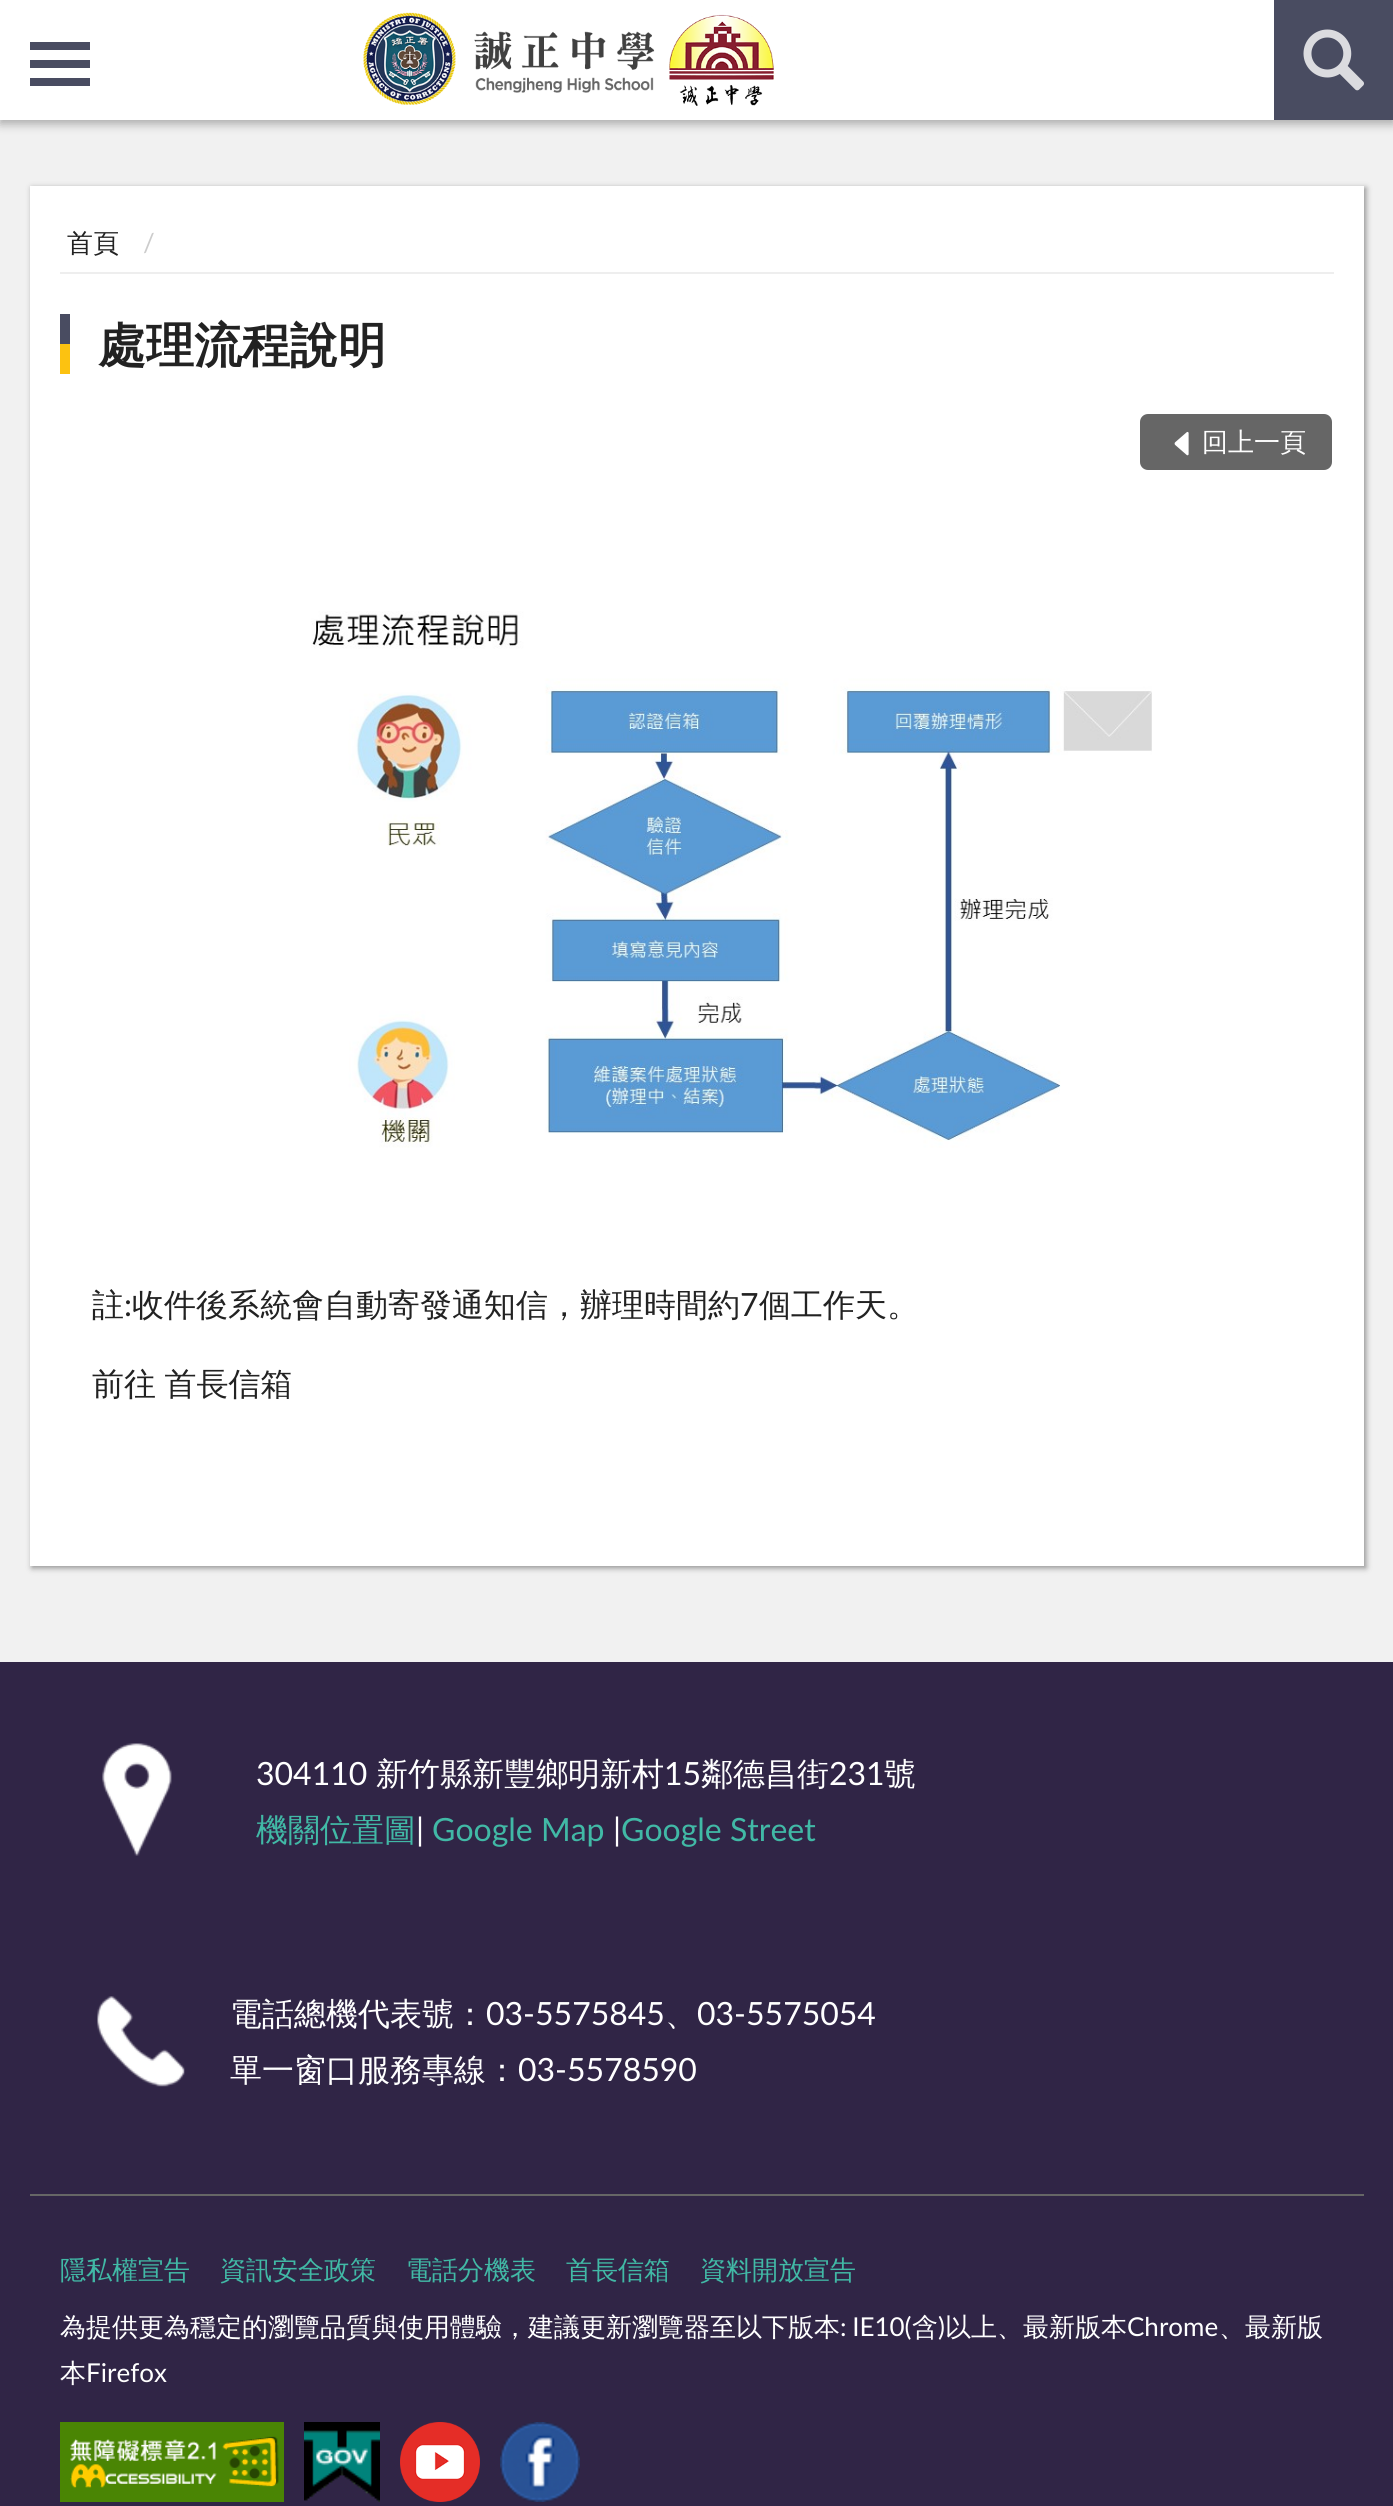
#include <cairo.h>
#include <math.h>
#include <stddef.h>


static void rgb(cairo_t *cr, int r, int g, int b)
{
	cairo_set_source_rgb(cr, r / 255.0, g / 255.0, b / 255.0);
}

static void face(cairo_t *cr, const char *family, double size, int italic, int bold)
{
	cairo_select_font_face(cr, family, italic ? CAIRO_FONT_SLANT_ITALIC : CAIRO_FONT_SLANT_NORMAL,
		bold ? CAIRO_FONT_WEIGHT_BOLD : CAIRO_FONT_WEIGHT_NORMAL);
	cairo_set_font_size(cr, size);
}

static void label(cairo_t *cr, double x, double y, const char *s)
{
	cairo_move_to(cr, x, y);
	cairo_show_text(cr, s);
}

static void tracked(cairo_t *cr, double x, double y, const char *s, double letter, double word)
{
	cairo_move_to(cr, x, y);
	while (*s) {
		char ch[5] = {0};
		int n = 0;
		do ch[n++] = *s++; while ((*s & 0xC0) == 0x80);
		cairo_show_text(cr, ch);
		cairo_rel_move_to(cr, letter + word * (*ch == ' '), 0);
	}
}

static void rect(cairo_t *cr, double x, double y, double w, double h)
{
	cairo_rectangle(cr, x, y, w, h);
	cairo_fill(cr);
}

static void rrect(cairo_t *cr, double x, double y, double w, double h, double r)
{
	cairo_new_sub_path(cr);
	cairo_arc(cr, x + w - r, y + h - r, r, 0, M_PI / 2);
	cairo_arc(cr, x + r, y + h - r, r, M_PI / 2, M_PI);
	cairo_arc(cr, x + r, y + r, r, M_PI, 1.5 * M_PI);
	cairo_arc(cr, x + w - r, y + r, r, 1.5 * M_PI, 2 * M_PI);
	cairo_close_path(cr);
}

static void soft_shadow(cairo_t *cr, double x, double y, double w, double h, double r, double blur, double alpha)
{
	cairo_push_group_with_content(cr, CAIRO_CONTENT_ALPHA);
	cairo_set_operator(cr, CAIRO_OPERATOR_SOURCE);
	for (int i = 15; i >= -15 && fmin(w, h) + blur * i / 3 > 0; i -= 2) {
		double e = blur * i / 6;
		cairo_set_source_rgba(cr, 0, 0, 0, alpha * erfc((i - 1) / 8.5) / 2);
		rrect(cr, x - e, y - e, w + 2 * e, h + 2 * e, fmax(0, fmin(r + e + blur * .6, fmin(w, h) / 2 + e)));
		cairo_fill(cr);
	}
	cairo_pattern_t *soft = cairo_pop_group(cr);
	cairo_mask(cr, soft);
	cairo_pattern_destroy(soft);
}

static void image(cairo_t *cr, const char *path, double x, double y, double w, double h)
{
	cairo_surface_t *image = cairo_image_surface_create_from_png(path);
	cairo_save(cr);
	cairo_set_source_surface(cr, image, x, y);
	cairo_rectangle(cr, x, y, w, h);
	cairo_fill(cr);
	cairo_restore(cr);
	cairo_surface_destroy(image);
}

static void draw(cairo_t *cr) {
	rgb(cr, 48, 37, 70);
	cairo_paint(cr);
	rgb(cr, 241, 241, 241);
	rect(cr, 0, 120, 1393, 1542);
	rgb(cr, 0, 0, 0);
	soft_shadow(cr, 0, 4, 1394, 120, 0, 5, 0.3);
	rgb(cr, 255, 255, 255);
	rect(cr, 0, 0, 1274, 120);
	rgb(cr, 73, 76, 97);
	rect(cr, 30, 42, 60, 8);
	rect(cr, 30, 60, 60, 8);
	rect(cr, 30, 78, 60, 8);
	image(cr, "image0.png", 363, 12, 411, 94);
	rect(cr, 1274, 0, 119, 120);
	image(cr, "image1.png", 1303, 29, 61, 62);
	rgb(cr, 0, 0, 0);
	soft_shadow(cr, 32, 188, 1334, 1380, 0, 3, 0.4);
	rgb(cr, 255, 255, 255);
	rect(cr, 30, 186, 1334, 1380);
	rgb(cr, 238, 238, 238);
	rect(cr, 60, 272, 1274, 2);
	face(cr, "WenQuanYi Zen Hei Medium", 26, 0, 0);
	rgb(cr, 34, 34, 34);
	label(cr, 67, 252, "首頁");
	face(cr, "Lato", 26, 0, 0);
	rgb(cr, 204, 204, 204);
	label(cr, 143, 252, "/");
	rgb(cr, 73, 76, 97);
	rect(cr, 60, 314, 10, 30);
	face(cr, "WenQuanYi Zen Hei", 48, 0, 1);
	rgb(cr, 34, 34, 34);
	label(cr, 98, 362, "處理流程說明");
	rgb(cr, 252, 194, 17);
	rect(cr, 60, 344, 10, 30);
	rgb(cr, 102, 102, 102);
	rrect(cr, 1140, 414, 192, 56, 8);
	cairo_fill(cr);
	image(cr, "image2.png", 1174, 431, 15, 25);
	face(cr, "WenQuanYi Zen Hei Medium", 26, 0, 0);
	rgb(cr, 255, 255, 255);
	label(cr, 1202, 451, "回上一頁");
	image(cr, "image3.png", 311, 611, 841, 537);
	face(cr, "WenQuanYi Zen Hei Medium", 32, 0, 0);
	rgb(cr, 34, 34, 34);
	label(cr, 92, 1316, "註");
	face(cr, "Lato", 32, 0, 0);
	label(cr, 124, 1316, ":");
	face(cr, "WenQuanYi Zen Hei Medium", 32, 0, 0);
	label(cr, 132, 1316, "收件後系統會自動寄發通知信，辦理時間約");
	face(cr, "Lato", 32, 0, 0);
	label(cr, 740, 1316, "7");
	face(cr, "WenQuanYi Zen Hei Medium", 32, 0, 0);
	label(cr, 759, 1316, "個工作天。");
	tracked(cr, 92, 1395, "前往 首長信箱", 0, -1);
	image(cr, "image4.png", 102, 1743, 70, 113);
	face(cr, "Lato", 32, 0, 0);
	rgb(cr, 255, 255, 255);
	label(cr, 256, 1785, "304110");
	face(cr, "WenQuanYi Zen Hei Medium", 32, 0, 0);
	label(cr, 376, 1785, "新竹縣新豐鄉明新村");
	face(cr, "Lato", 32, 0, 0);
	label(cr, 664, 1785, "15");
	face(cr, "WenQuanYi Zen Hei Medium", 32, 0, 0);
	label(cr, 701, 1785, "鄰德昌街");
	face(cr, "Lato", 32, 0, 0);
	label(cr, 829, 1785, "231");
	face(cr, "WenQuanYi Zen Hei Medium", 32, 0, 0);
	label(cr, 884, 1785, "號");
	rgb(cr, 65, 185, 166);
	label(cr, 256, 1841, "機關位置圖");
	face(cr, "Lato", 32, 0, 0);
	rgb(cr, 255, 255, 255);
	label(cr, 416, 1841, "|");
	rgb(cr, 65, 185, 166);
	label(cr, 432, 1841, "Google Map");
	rgb(cr, 255, 255, 255);
	label(cr, 613, 1841, "|");
	rgb(cr, 65, 185, 166);
	label(cr, 621, 1841, "Google Street");
	image(cr, "image5.png", 97, 1996, 88, 91);
	face(cr, "WenQuanYi Zen Hei Medium", 32, 0, 0);
	rgb(cr, 255, 255, 255);
	label(cr, 230, 2025, "電話總機代表號：");
	face(cr, "Lato", 32, 0, 0);
	label(cr, 486, 2025, "03-5575845");
	face(cr, "WenQuanYi Zen Hei Medium", 32, 0, 0);
	label(cr, 665, 2025, "、");
	face(cr, "Lato", 32, 0, 0);
	label(cr, 697, 2025, "03-5575054");
	face(cr, "WenQuanYi Zen Hei Medium", 32, 0, 0);
	label(cr, 230, 2081, "單一窗口服務專線：");
	face(cr, "Lato", 32, 0, 0);
	label(cr, 518, 2081, "03-5578590");
	rgb(cr, 102, 102, 102);
	rect(cr, 30, 2194, 1334, 2);
	face(cr, "WenQuanYi Zen Hei Medium", 26, 0, 0);
	rgb(cr, 65, 185, 166);
	label(cr, 60, 2279, "隱私權宣告");
	label(cr, 220, 2279, "資訊安全政策");
	label(cr, 406, 2279, "電話分機表");
	label(cr, 566, 2279, "首長信箱");
	label(cr, 700, 2279, "資料開放宣告");
	rgb(cr, 255, 255, 255);
	label(cr, 60, 2336, "為提供更為穩定的瀏覽品質與使用體驗，建議更新瀏覽器至以下版本");
	face(cr, "Lato", 26, 0, 0);
	tracked(cr, 840, 2336, ": IE10(", 0, -1);
	face(cr, "WenQuanYi Zen Hei Medium", 26, 0, 0);
	label(cr, 912, 2336, "含");
	face(cr, "Lato", 26, 0, 0);
	label(cr, 938, 2336, ")");
	face(cr, "WenQuanYi Zen Hei Medium", 26, 0, 0);
	label(cr, 945, 2336, "以上、最新版本");
	face(cr, "Lato", 26, 0, 0);
	label(cr, 1127, 2336, "Chrome");
	face(cr, "WenQuanYi Zen Hei Medium", 26, 0, 0);
	label(cr, 1219, 2336, "、最新版");
	label(cr, 60, 2382, "本");
	face(cr, "Lato", 26, 0, 0);
	label(cr, 86, 2382, "Firefox");
	image(cr, "image6.png", 60, 2422, 224, 80);
	image(cr, "image7.png", 304, 2422, 76, 80);
	image(cr, "image8.png", 400, 2422, 80, 80);
	image(cr, "image9.png", 500, 2422, 80, 80);
}

int main(void) {
	cairo_surface_t *surface = cairo_image_surface_create(CAIRO_FORMAT_RGB24, 1393, 2506);
	cairo_t *cr = cairo_create(surface);
	cairo_font_options_t *options = cairo_font_options_create();
	cairo_font_options_set_hint_metrics(options, CAIRO_HINT_METRICS_OFF);
	cairo_font_options_set_hint_style(options, CAIRO_HINT_STYLE_NONE);
	cairo_set_font_options(cr, options);
	cairo_set_miter_limit(cr, 4);
	draw(cr);
	cairo_surface_write_to_png(surface, "render.png");
	cairo_font_options_destroy(options);
	cairo_destroy(cr);
	cairo_surface_destroy(surface);
	return 0;
}
